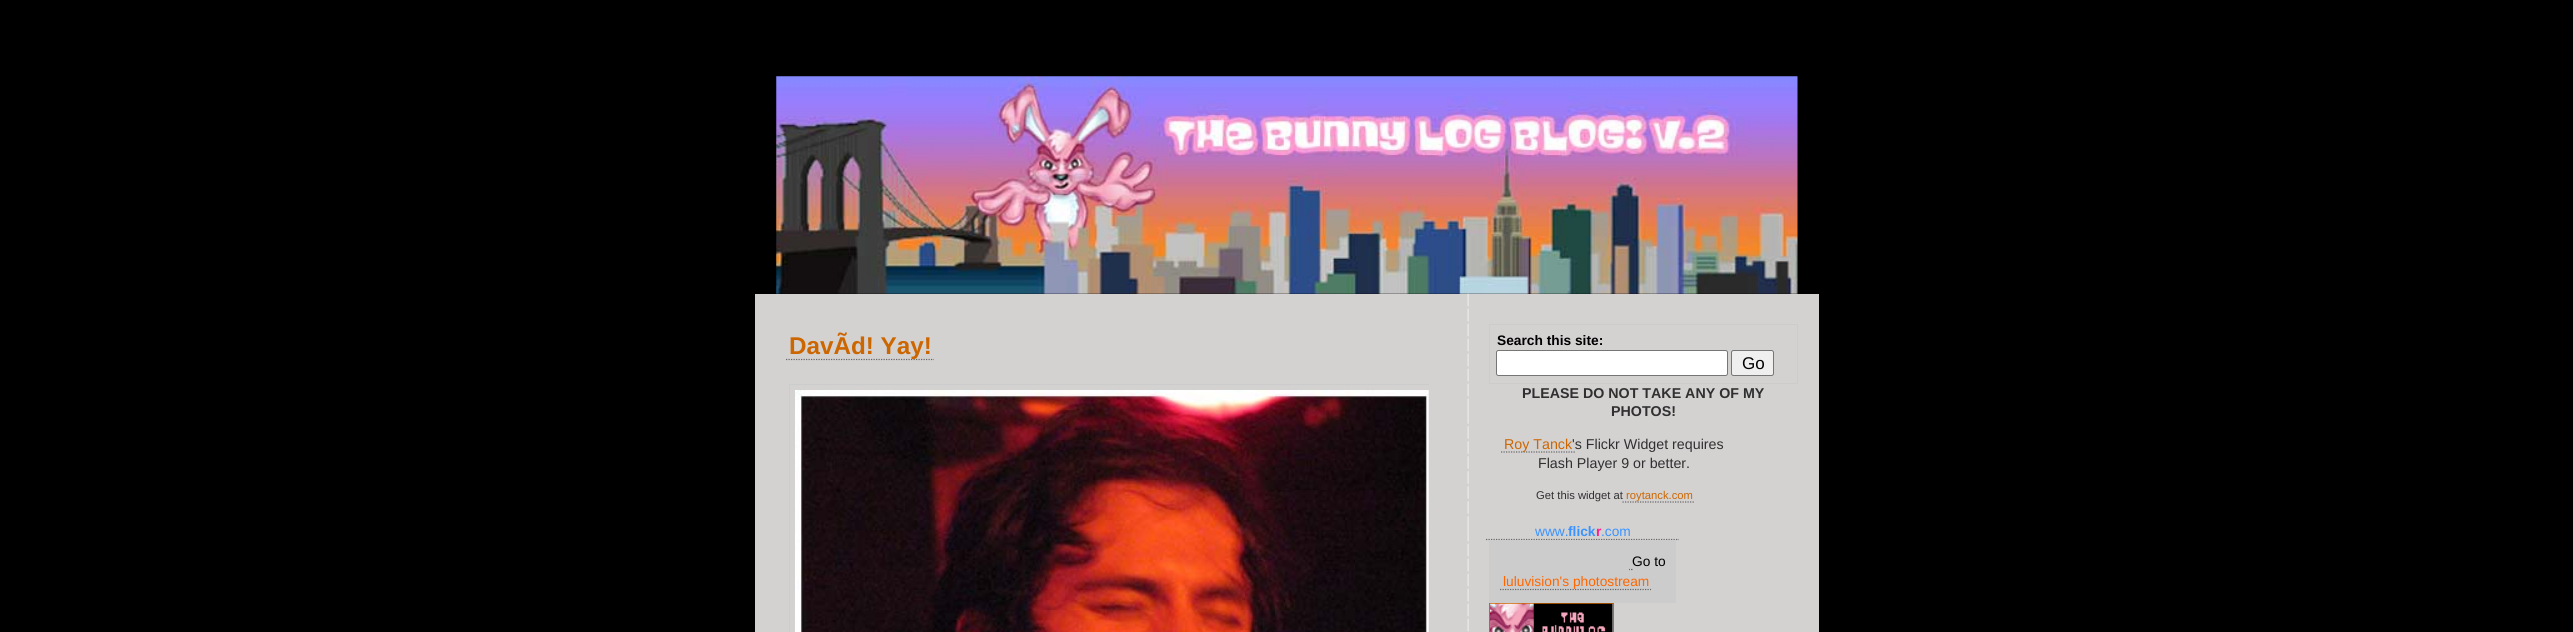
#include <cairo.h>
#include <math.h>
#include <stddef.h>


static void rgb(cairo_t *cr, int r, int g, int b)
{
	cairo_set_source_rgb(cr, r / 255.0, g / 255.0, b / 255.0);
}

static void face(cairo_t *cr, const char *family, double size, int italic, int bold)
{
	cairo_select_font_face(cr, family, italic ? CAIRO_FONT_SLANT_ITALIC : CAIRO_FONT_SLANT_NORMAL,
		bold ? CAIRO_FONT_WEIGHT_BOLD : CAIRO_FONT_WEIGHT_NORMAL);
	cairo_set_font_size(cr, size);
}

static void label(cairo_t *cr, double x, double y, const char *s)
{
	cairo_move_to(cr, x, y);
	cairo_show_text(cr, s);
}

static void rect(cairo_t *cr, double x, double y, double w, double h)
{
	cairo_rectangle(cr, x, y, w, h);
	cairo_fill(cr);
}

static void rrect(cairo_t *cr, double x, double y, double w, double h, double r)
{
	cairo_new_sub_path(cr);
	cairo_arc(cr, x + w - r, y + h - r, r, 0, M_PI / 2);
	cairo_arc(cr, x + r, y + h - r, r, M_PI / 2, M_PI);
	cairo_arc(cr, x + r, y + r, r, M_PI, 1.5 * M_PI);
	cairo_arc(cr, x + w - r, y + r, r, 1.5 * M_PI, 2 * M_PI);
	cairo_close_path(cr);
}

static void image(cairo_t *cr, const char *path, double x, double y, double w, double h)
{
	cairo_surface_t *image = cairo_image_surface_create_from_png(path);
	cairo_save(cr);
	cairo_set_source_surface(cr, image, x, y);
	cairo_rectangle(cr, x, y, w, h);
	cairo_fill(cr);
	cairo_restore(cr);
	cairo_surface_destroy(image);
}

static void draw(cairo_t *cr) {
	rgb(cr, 0, 0, 0);
	cairo_paint(cr);
	image(cr, "image0.png", 776, 76, 1022, 218);
	rgb(cr, 212, 209, 209);
	rect(cr, 755, 294, 1064, 338);
	image(cr, "image1.png", 1467, 293, 2, 339);
	cairo_new_path(cr);
	cairo_move_to(cr, 786, 359.5);
	cairo_line_to(cr, 934, 359.5);
	rgb(cr, 102, 102, 102);
	cairo_set_line_width(cr, 1.2);
	cairo_set_dash(cr, (double[]){1.25, 1.25}, 2, 0);
	cairo_stroke(cr);
	face(cr, "Liberation Sans", 24.25, 0, 1);
	rgb(cr, 204, 102, 0);
	label(cr, 789, 354, "DavÃd! Yay!");
	cairo_save(cr);
	cairo_rectangle(cr, 776, 324, 653, 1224);
	cairo_clip(cr);
	cairo_rectangle(cr, 789.5, 384.5, 649, 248);
	rgb(cr, 204, 204, 204);
	cairo_set_line_width(cr, 1);
	cairo_set_dash(cr, NULL, 0, 0);
	cairo_stroke(cr);
	cairo_restore(cr);
	image(cr, "image2.png", 795, 390, 634, 242);
	cairo_rectangle(cr, 1489.5, 324.5, 308, 59);
	rgb(cr, 204, 204, 204);
	cairo_set_line_width(cr, 1);
	cairo_set_dash(cr, NULL, 0, 0);
	cairo_stroke(cr);
	face(cr, "Liberation Sans", 13.75, 0, 1);
	rgb(cr, 0, 0, 0);
	label(cr, 1497, 345, "Search this site:");
	rgb(cr, 255, 255, 255);
	rrect(cr, 1496.5, 350.5, 231, 25, 2);
	cairo_fill_preserve(cr);
	rgb(cr, 118, 118, 118);
	cairo_stroke(cr);
	rgb(cr, 239, 239, 239);
	rrect(cr, 1731.5, 350.5, 42, 25, 2);
	cairo_fill_preserve(cr);
	rgb(cr, 118, 118, 118);
	cairo_stroke(cr);
	face(cr, "Liberation Sans", 17, 0, 0);
	rgb(cr, 0, 0, 0);
	label(cr, 1742, 369, "Go");
	face(cr, "Liberation Sans", 14.25, 0, 1);
	rgb(cr, 48, 48, 48);
	label(cr, 1522, 398, "PLEASE DO NOT TAKE ANY OF MY");
	label(cr, 1611, 416, "PHOTOS!");
	cairo_new_path(cr);
	cairo_move_to(cr, 1501, 452);
	cairo_line_to(cr, 1575, 452);
	rgb(cr, 102, 102, 102);
	cairo_set_line_width(cr, 1.2);
	cairo_set_dash(cr, (double[]){1.25, 1.25}, 2, 0);
	cairo_stroke(cr);
	face(cr, "Liberation Sans", 14.25, 0, 0);
	rgb(cr, 204, 102, 0);
	label(cr, 1504, 449, "Roy Tanck");
	rgb(cr, 48, 48, 48);
	label(cr, 1572, 449, "'s Flickr Widget requires");
	label(cr, 1538, 468, "Flash Player 9 or better.");
	face(cr, "Liberation Sans", 11.25, 0, 0);
	label(cr, 1536, 499, "Get this widget at");
	cairo_new_path(cr);
	cairo_move_to(cr, 1622.5, 502);
	cairo_line_to(cr, 1695, 502);
	rgb(cr, 102, 102, 102);
	cairo_stroke(cr);
	rgb(cr, 204, 102, 0);
	label(cr, 1626, 499, "roytanck.com");
	cairo_new_path(cr);
	cairo_move_to(cr, 1486, 539.5);
	cairo_line_to(cr, 1679, 539.5);
	rgb(cr, 102, 102, 102);
	cairo_stroke(cr);
	face(cr, "Liberation Sans", 13.75, 0, 0);
	rgb(cr, 57, 147, 255);
	label(cr, 1535, 536, "www.");
	face(cr, "Liberation Sans", 13.75, 0, 1);
	label(cr, 1568, 536, "flick");
	rgb(cr, 255, 28, 146);
	label(cr, 1596, 536, "r");
	face(cr, "Liberation Sans", 13.75, 0, 0);
	rgb(cr, 57, 147, 255);
	label(cr, 1601, 536, ".com");
	rgb(cr, 204, 204, 204);
	rect(cr, 1489, 540, 187, 63);
	rgb(cr, 0, 0, 0);
	label(cr, 1632, 566, "Go to");
	cairo_new_path(cr);
	cairo_move_to(cr, 1629, 569.5);
	cairo_line_to(cr, 1630, 569.5);
	cairo_move_to(cr, 1631, 569.5);
	cairo_line_to(cr, 1632.5, 569.5);
	rgb(cr, 102, 102, 102);
	cairo_set_dash(cr, NULL, 0, 0);
	cairo_stroke(cr);
	cairo_new_path(cr);
	cairo_move_to(cr, 1500, 589.5);
	cairo_line_to(cr, 1651, 589.5);
	cairo_set_dash(cr, (double[]){1.25, 1.25}, 2, 0);
	cairo_stroke(cr);
	rgb(cr, 255, 102, 0);
	label(cr, 1503, 586, "luluvision's photostream");
	cairo_rectangle(cr, 1489.5, 603.5, 124, 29);
	rgb(cr, 204, 102, 0);
	cairo_set_line_width(cr, 1);
	cairo_set_dash(cr, NULL, 0, 0);
	cairo_stroke(cr);
	image(cr, "image3.png", 1490, 603, 123, 29);
}

int main(void) {
	cairo_surface_t *surface = cairo_image_surface_create(CAIRO_FORMAT_RGB24, 2573, 632);
	cairo_t *cr = cairo_create(surface);
	cairo_font_options_t *options = cairo_font_options_create();
	cairo_font_options_set_hint_metrics(options, CAIRO_HINT_METRICS_OFF);
	cairo_font_options_set_hint_style(options, CAIRO_HINT_STYLE_NONE);
	cairo_set_font_options(cr, options);
	cairo_set_miter_limit(cr, 4);
	draw(cr);
	cairo_surface_write_to_png(surface, "render.png");
	cairo_font_options_destroy(options);
	cairo_destroy(cr);
	cairo_surface_destroy(surface);
	return 0;
}
